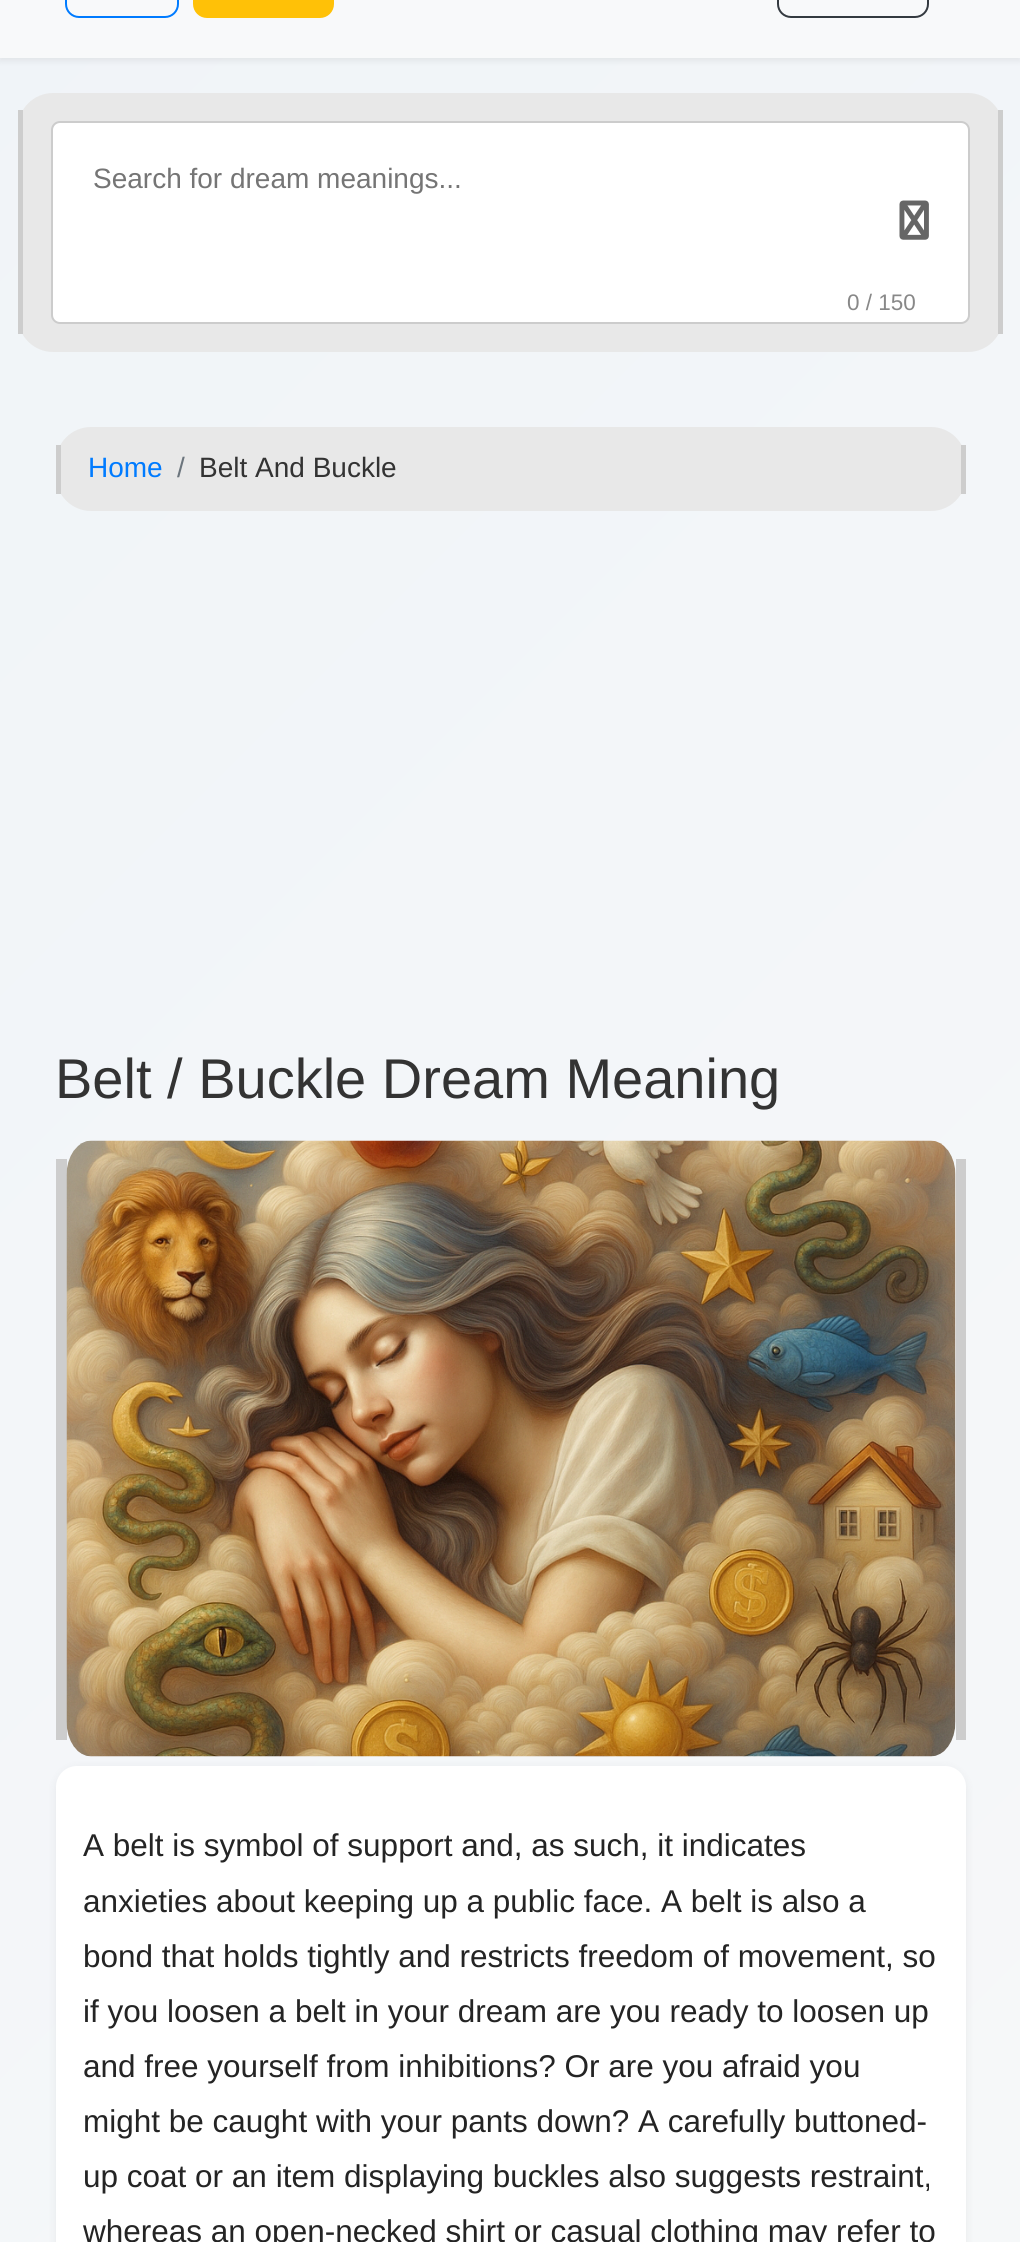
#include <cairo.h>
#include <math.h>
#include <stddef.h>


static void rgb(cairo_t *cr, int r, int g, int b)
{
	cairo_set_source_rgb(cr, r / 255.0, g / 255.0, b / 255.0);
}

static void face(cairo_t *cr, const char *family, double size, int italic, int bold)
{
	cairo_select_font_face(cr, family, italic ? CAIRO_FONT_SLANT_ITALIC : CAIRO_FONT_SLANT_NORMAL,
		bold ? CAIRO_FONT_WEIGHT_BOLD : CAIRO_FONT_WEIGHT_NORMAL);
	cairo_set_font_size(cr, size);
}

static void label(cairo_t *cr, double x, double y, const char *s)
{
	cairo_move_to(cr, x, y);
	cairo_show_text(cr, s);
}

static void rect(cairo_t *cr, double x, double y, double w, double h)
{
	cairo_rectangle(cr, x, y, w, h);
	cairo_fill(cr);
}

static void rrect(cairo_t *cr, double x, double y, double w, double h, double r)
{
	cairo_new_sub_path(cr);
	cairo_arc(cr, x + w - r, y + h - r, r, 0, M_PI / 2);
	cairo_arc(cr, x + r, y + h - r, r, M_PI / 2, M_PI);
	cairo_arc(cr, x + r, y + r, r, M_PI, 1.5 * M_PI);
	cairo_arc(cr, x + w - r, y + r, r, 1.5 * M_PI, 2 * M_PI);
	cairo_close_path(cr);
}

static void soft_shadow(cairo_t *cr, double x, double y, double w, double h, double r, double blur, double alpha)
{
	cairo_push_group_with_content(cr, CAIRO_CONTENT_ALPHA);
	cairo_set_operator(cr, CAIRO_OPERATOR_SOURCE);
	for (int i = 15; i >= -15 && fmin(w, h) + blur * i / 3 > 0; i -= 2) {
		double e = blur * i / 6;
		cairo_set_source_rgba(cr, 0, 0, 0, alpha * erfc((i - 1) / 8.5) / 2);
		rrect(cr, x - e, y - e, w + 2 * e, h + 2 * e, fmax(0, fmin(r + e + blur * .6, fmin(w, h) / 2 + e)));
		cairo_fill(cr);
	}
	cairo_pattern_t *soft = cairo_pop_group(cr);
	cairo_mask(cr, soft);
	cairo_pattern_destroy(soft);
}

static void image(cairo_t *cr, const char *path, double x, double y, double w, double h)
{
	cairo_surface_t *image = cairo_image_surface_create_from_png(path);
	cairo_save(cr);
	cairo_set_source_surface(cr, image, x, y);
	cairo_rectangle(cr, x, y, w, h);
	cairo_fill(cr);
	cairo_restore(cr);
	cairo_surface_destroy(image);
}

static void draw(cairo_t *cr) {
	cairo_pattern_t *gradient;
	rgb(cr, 255, 255, 255);
	cairo_paint(cr);
	gradient = cairo_pattern_create_linear(-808, 671, 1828, 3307);
	cairo_pattern_add_color_stop_rgba(gradient, 0, 0.941, 0.957, 0.973, 1);
	cairo_pattern_add_color_stop_rgba(gradient, 1, 0.98, 0.98, 0.98, 1);
	cairo_set_source(cr, gradient);
	cairo_pattern_destroy(gradient);
	rect(cr, 0, 58, 1020, 2184);
	rgb(cr, 0, 0, 0);
	soft_shadow(cr, 0, -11, 1020, 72, 0, 3.5, 0.07);
	rgb(cr, 248, 249, 250);
	rect(cr, 0, 0, 1020, 58);
	rrect(cr, 66, -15, 112, 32, 13);
	rgb(cr, 0, 123, 255);
	cairo_stroke(cr);
	rgb(cr, 255, 193, 7);
	rrect(cr, 194, -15, 139, 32, 13);
	cairo_fill_preserve(cr);
	cairo_stroke(cr);
	rrect(cr, 778, -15, 150, 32, 13);
	rgb(cr, 52, 58, 64);
	cairo_stroke(cr);
	rgb(cr, 232, 232, 232);
	rrect(cr, 18, 93, 985, 259, 35);
	cairo_fill(cr);
	rgb(cr, 205, 205, 205);
	rect(cr, 998, 110, 5, 224);
	rect(cr, 18, 110, 5, 224);
	rgb(cr, 255, 255, 255);
	rrect(cr, 52, 122, 917, 201, 8);
	cairo_fill_preserve(cr);
	rgb(cr, 204, 204, 204);
	cairo_stroke(cr);
	face(cr, "Liberation Sans", 28, 0, 0);
	rgb(cr, 117, 117, 117);
	label(cr, 93, 188, "Search for dream meanings...");
	image(cr, "image0.png", 899, 200, 30, 40);
	face(cr, "Liberation Sans", 22.5, 0, 0);
	rgb(cr, 136, 136, 136);
	label(cr, 847, 310, "0 / 150");
	rgb(cr, 232, 232, 232);
	rrect(cr, 56, 427, 910, 84, 35);
	cairo_fill(cr);
	rgb(cr, 205, 205, 205);
	rect(cr, 961, 445, 5, 49);
	rect(cr, 56, 445, 5, 49);
	face(cr, "Liberation Sans", 28, 0, 0);
	rgb(cr, 0, 123, 255);
	label(cr, 88, 477, "Home");
	rgb(cr, 108, 117, 125);
	label(cr, 177, 477, "/");
	rgb(cr, 51, 51, 51);
	label(cr, 199, 477, "Belt And Buckle");
	face(cr, "Liberation Sans", 56, 0, 0);
	label(cr, 55, 1098, "Belt / Buckle Dream Meaning");
	rgb(cr, 205, 205, 205);
	rect(cr, 56, 1159, 11, 581);
	rgb(cr, 0, 0, 0);
	soft_shadow(cr, 56, 1768, 910, 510, 21, 5, 0.06);
	image(cr, "image1.png", 66, 1140, 890, 617);
	rgb(cr, 205, 205, 205);
	rect(cr, 956, 1159, 10, 581);
	rgb(cr, 255, 255, 255);
	rrect(cr, 56, 1766, 910, 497, 21);
	cairo_fill(cr);
	face(cr, "Liberation Sans", 31.5, 0, 0);
	rgb(cr, 36, 36, 36);
	label(cr, 83, 1856, "A belt is symbol of support and, as such, it indicates");
	label(cr, 83, 1912, "anxieties about keeping up a public face. A belt is also a");
	label(cr, 83, 1967, "bond that holds tightly and restricts freedom of movement, so");
	label(cr, 83, 2022, "if you loosen a belt in your dream are you ready to loosen up");
	label(cr, 83, 2077, "and free yourself from inhibitions? Or are you afraid you");
	label(cr, 83, 2132, "might be caught with your pants down? A carefully buttoned-");
	label(cr, 83, 2187, "up coat or an item displaying buckles also suggests restraint,");
	label(cr, 83, 2242, "whereas an open-necked shirt or casual clothing may refer to");
}

int main(void) {
	cairo_surface_t *surface = cairo_image_surface_create(CAIRO_FORMAT_RGB24, 1020, 2242);
	cairo_t *cr = cairo_create(surface);
	cairo_font_options_t *options = cairo_font_options_create();
	cairo_font_options_set_hint_metrics(options, CAIRO_HINT_METRICS_OFF);
	cairo_font_options_set_hint_style(options, CAIRO_HINT_STYLE_NONE);
	cairo_set_font_options(cr, options);
	cairo_set_miter_limit(cr, 4);
	draw(cr);
	cairo_surface_write_to_png(surface, "render.png");
	cairo_font_options_destroy(options);
	cairo_destroy(cr);
	cairo_surface_destroy(surface);
	return 0;
}
